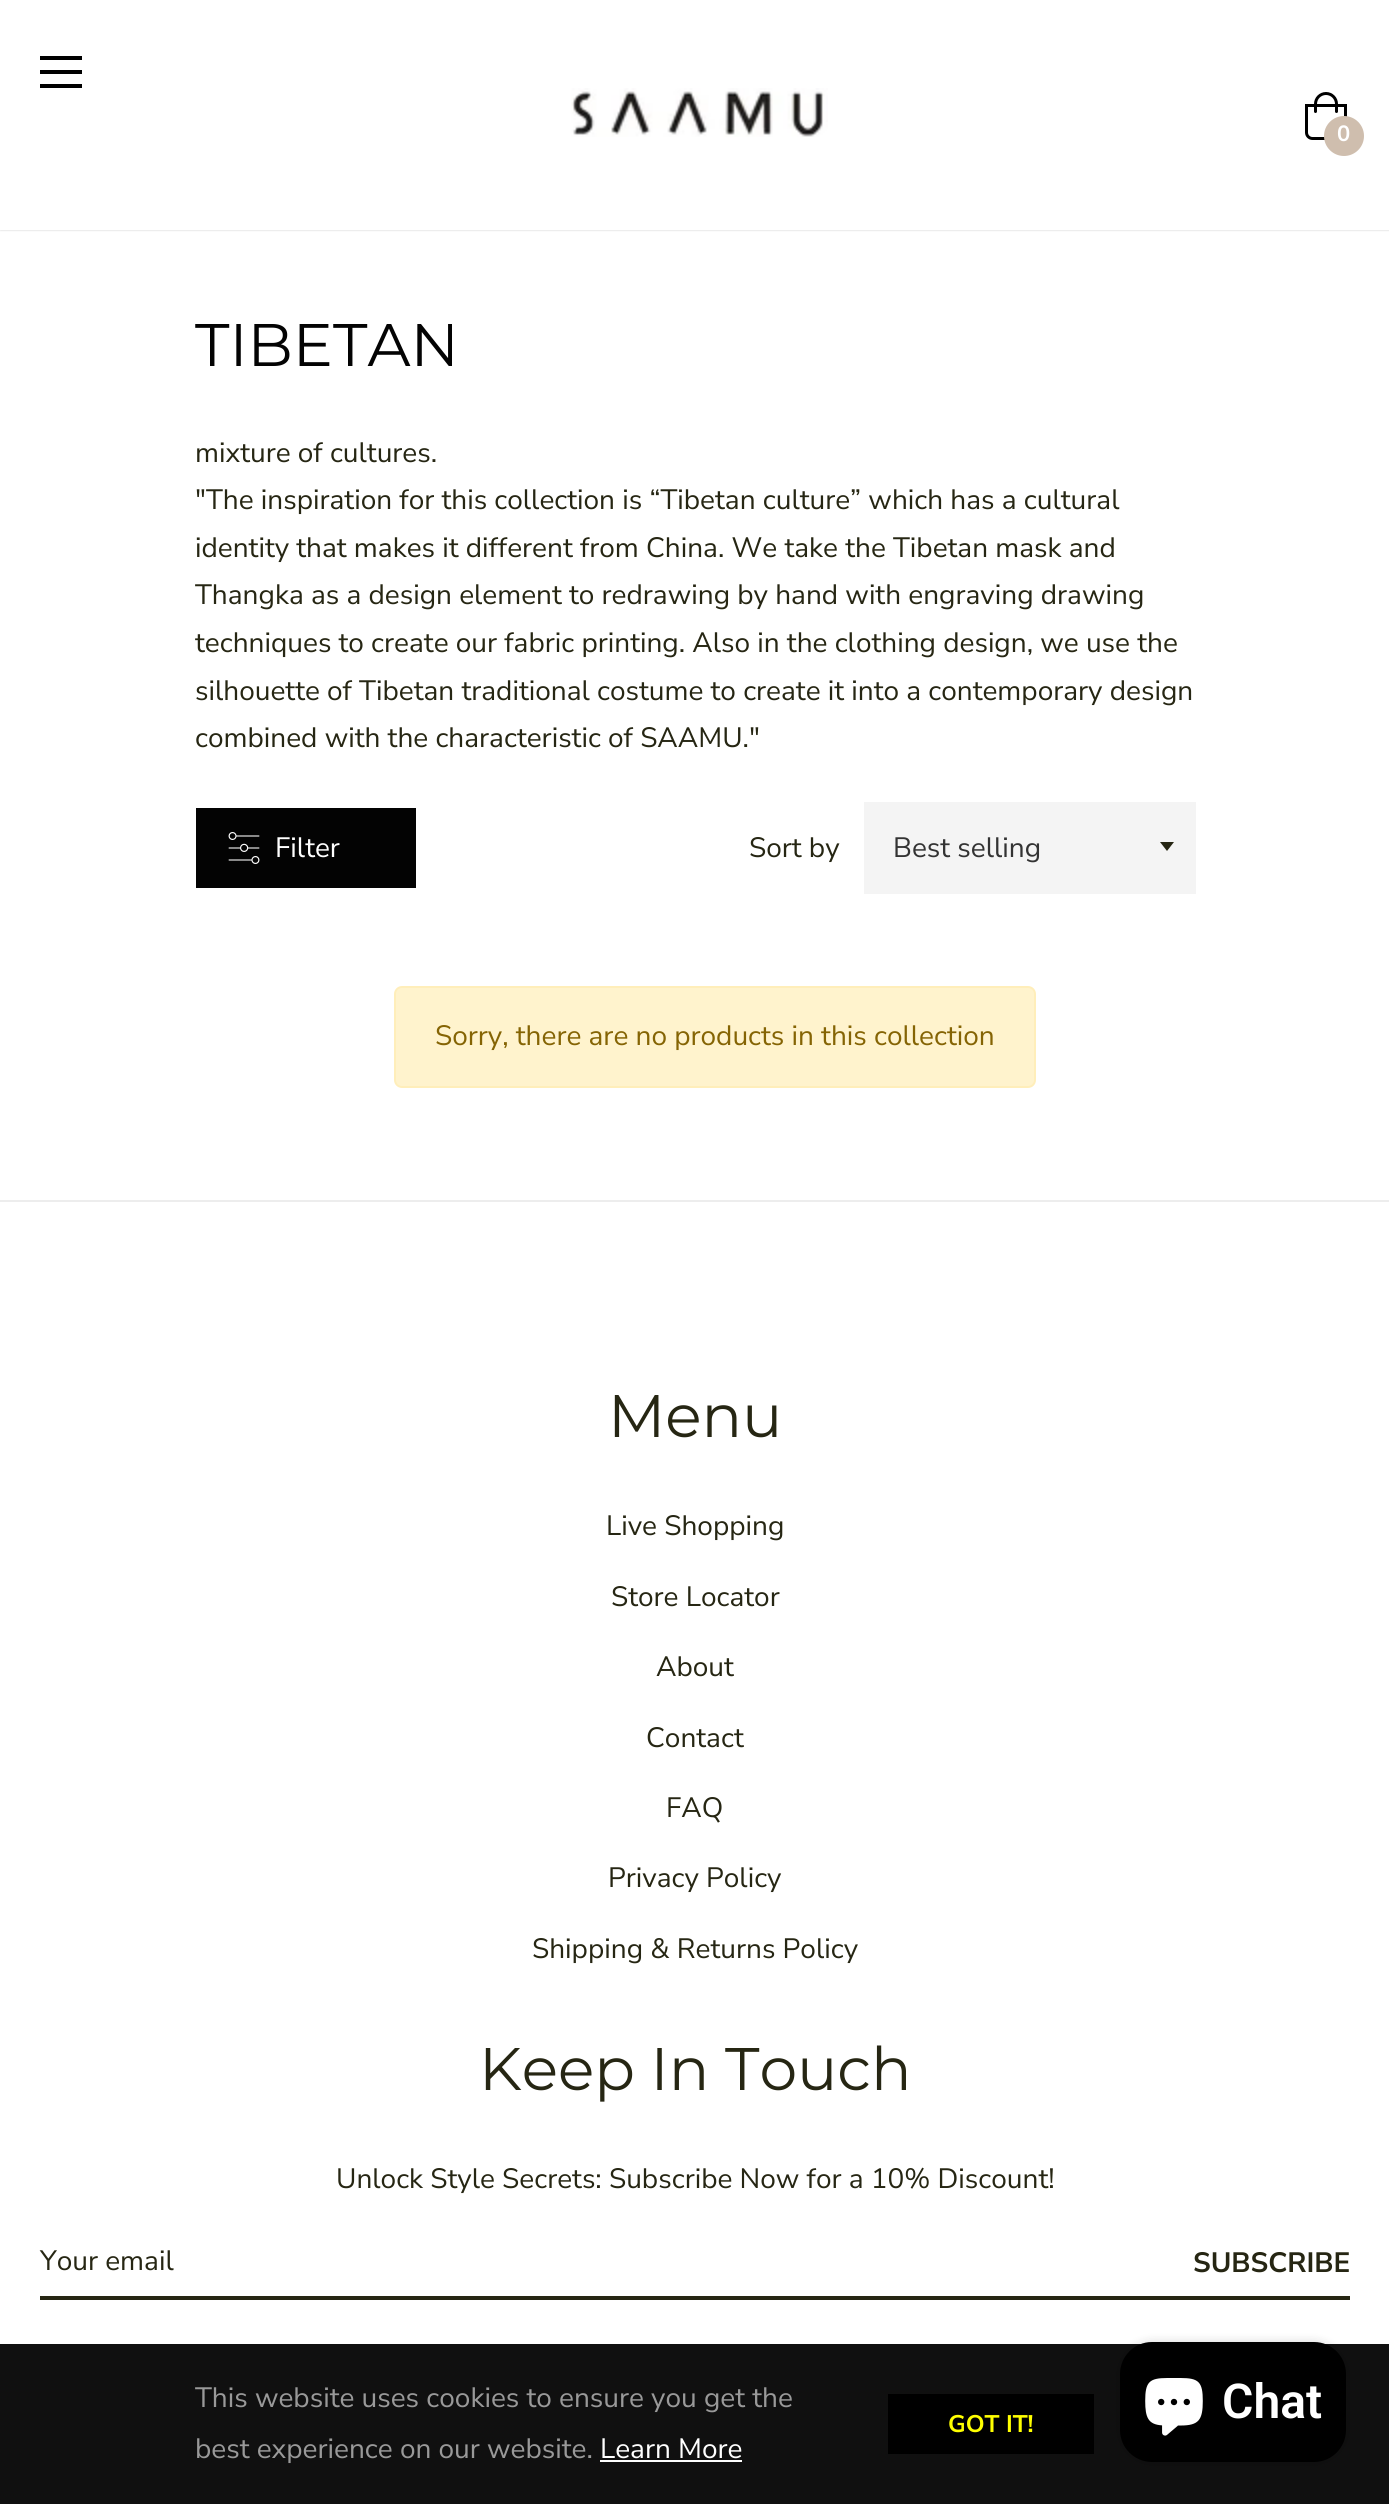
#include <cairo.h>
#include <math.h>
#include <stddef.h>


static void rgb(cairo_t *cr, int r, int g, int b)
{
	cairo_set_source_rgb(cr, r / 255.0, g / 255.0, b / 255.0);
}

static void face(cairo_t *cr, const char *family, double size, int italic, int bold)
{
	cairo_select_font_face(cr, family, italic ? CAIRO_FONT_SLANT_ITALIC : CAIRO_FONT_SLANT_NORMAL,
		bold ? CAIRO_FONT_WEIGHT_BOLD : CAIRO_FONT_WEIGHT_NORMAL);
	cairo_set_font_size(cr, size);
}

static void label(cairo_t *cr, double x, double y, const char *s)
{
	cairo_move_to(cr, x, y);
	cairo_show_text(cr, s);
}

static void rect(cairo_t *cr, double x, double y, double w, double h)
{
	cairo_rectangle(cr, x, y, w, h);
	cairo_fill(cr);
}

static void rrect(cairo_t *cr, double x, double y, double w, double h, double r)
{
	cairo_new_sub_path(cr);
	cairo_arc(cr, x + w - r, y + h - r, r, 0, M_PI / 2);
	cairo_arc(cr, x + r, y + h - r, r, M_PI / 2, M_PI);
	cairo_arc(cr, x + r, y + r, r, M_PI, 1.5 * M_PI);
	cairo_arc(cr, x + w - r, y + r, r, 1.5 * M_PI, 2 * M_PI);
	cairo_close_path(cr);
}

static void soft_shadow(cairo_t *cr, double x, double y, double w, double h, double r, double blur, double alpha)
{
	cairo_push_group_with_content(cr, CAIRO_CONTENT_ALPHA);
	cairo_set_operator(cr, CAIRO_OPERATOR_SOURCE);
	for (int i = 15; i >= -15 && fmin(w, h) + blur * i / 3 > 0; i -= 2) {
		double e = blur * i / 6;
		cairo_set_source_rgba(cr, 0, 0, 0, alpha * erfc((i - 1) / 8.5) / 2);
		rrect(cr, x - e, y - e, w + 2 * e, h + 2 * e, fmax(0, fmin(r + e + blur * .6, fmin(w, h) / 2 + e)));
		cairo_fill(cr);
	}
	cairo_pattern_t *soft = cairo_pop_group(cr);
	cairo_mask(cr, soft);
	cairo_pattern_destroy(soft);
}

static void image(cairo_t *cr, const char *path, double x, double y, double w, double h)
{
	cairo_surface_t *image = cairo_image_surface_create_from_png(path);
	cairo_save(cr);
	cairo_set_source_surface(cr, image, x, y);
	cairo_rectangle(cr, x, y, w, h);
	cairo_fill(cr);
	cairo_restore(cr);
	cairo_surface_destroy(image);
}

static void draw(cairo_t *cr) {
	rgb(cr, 255, 255, 255);
	cairo_paint(cr);
	rgb(cr, 0, 0, 0);
	soft_shadow(cr, 0, 0, 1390, 230, 0, 1, 0.2);
	rgb(cr, 255, 255, 255);
	rect(cr, 0, 0, 1389, 230);
	rgb(cr, 0, 0, 0);
	rect(cr, 40, 56, 42, 4);
	rect(cr, 40, 70, 42, 4);
	rect(cr, 40, 84, 42, 4);
	image(cr, "image0.png", 571, 88, 257, 49);
	image(cr, "image1.png", 1305, 92, 42, 48);
	rgb(cr, 207, 190, 174);
	cairo_arc(cr, 1344, 136, 20, 0, 2 * M_PI);
	cairo_fill(cr);
	face(cr, "Nunito Sans", 22, 0, 1);
	rgb(cr, 255, 255, 255);
	label(cr, 1337, 141, "0");
	face(cr, "Montserrat", 60, 0, 0);
	rgb(cr, 3, 3, 3);
	label(cr, 195, 366, "TIBETAN");
	face(cr, "Nunito Sans", 28, 0, 0);
	rgb(cr, 38, 38, 19);
	label(cr, 195, 462, "mixture of cultures.");
	label(cr, 195, 509, "\"The inspiration for this collection is “Tibetan culture” which has a cultural");
	label(cr, 195, 557, "identity that makes it different from China. We take the Tibetan mask and");
	label(cr, 195, 604, "Thangka as a design element to redrawing by hand with engraving drawing");
	label(cr, 195, 652, "techniques to create our fabric printing. Also in the clothing design, we use the");
	label(cr, 195, 700, "silhouette of Tibetan traditional costume to create it into a contemporary design");
	label(cr, 195, 747, "combined with the characteristic of SAAMU.\"");
	rgb(cr, 3, 3, 3);
	rect(cr, 196, 808, 220, 80);
	image(cr, "image2.png", 228, 832, 32, 32);
	rgb(cr, 255, 255, 255);
	label(cr, 275, 857, "Filter");
	rgb(cr, 38, 38, 19);
	label(cr, 749, 857, "Sort by");
	rgb(cr, 244, 244, 244);
	rect(cr, 864, 802, 332, 92);
	rgb(cr, 38, 38, 19);
	cairo_new_path(cr);
	cairo_move_to(cr, 1160, 842);
	cairo_line_to(cr, 1167, 851);
	cairo_line_to(cr, 1174, 842);
	cairo_close_path(cr);
	cairo_fill(cr);
	rgb(cr, 51, 51, 51);
	label(cr, 893, 857, "Best selling");
	rgb(cr, 255, 243, 205);
	rrect(cr, 395, 987, 640, 100, 7);
	cairo_fill_preserve(cr);
	rgb(cr, 255, 238, 186);
	cairo_stroke(cr);
	rgb(cr, 133, 100, 4);
	label(cr, 435, 1045, "Sorry, there are no products in this collection");
	rgb(cr, 237, 237, 237);
	rect(cr, 0, 1200, 1389, 2);
	face(cr, "Montserrat", 60, 0, 0);
	rgb(cr, 38, 38, 19);
	label(cr, 608, 1437, "Menu");
	face(cr, "Nunito Sans", 28, 0, 0);
	label(cr, 606, 1535, "Live Shopping");
	label(cr, 611, 1606, "Store Locator");
	label(cr, 656, 1676, "About");
	label(cr, 646, 1747, "Contact");
	label(cr, 666, 1817, "FAQ");
	label(cr, 608, 1887, "Privacy Policy");
	label(cr, 532, 1958, "Shipping & Returns Policy");
	face(cr, "Montserrat", 60, 0, 0);
	label(cr, 479, 2090, "Keep In Touch");
	face(cr, "Nunito Sans", 28, 0, 0);
	label(cr, 336, 2188, "Unlock Style Secrets: Subscribe Now for a 10% Discount!");
	rect(cr, 40, 2296, 1310, 4);
	label(cr, 40, 2270, "Your email");
	face(cr, "Nunito Sans", 28, 0, 1);
	label(cr, 1193, 2272, "SUBSCRIBE");
	rgb(cr, 16, 16, 16);
	rect(cr, 0, 2344, 1389, 160);
	face(cr, "Nunito Sans", 28, 0, 0);
	rgb(cr, 153, 153, 153);
	label(cr, 195, 2407, "This website uses cookies to ensure you get the");
	label(cr, 195, 2458, "best experience on our website.");
	rgb(cr, 255, 255, 255);
	label(cr, 600, 2458, "Learn More");
	rect(cr, 600, 2460, 142, 2);
	rgb(cr, 0, 0, 0);
	rect(cr, 888, 2394, 206, 60);
	face(cr, "Nunito Sans", 24, 0, 1);
	rgb(cr, 255, 255, 0);
	label(cr, 948, 2432, "GOT IT!");
	rgb(cr, 0, 0, 0);
	soft_shadow(cr, 1120, 2342, 226, 120, 32, 5, 0.15);
	rgb(cr, 0, 0, 0);
	rrect(cr, 1120, 2342, 226, 120, 32);
	cairo_fill(cr);
	image(cr, "image3.png", 1145, 2378, 58, 58);
	face(cr, "Roboto SemiBold", 48, 0, 0);
	rgb(cr, 255, 255, 255);
	label(cr, 1222, 2418, "Chat");
}

int main(void) {
	cairo_surface_t *surface = cairo_image_surface_create(CAIRO_FORMAT_RGB24, 1389, 2504);
	cairo_t *cr = cairo_create(surface);
	cairo_font_options_t *options = cairo_font_options_create();
	cairo_font_options_set_hint_metrics(options, CAIRO_HINT_METRICS_OFF);
	cairo_font_options_set_hint_style(options, CAIRO_HINT_STYLE_NONE);
	cairo_set_font_options(cr, options);
	cairo_set_miter_limit(cr, 4);
	draw(cr);
	cairo_surface_write_to_png(surface, "render.png");
	cairo_font_options_destroy(options);
	cairo_destroy(cr);
	cairo_surface_destroy(surface);
	return 0;
}
